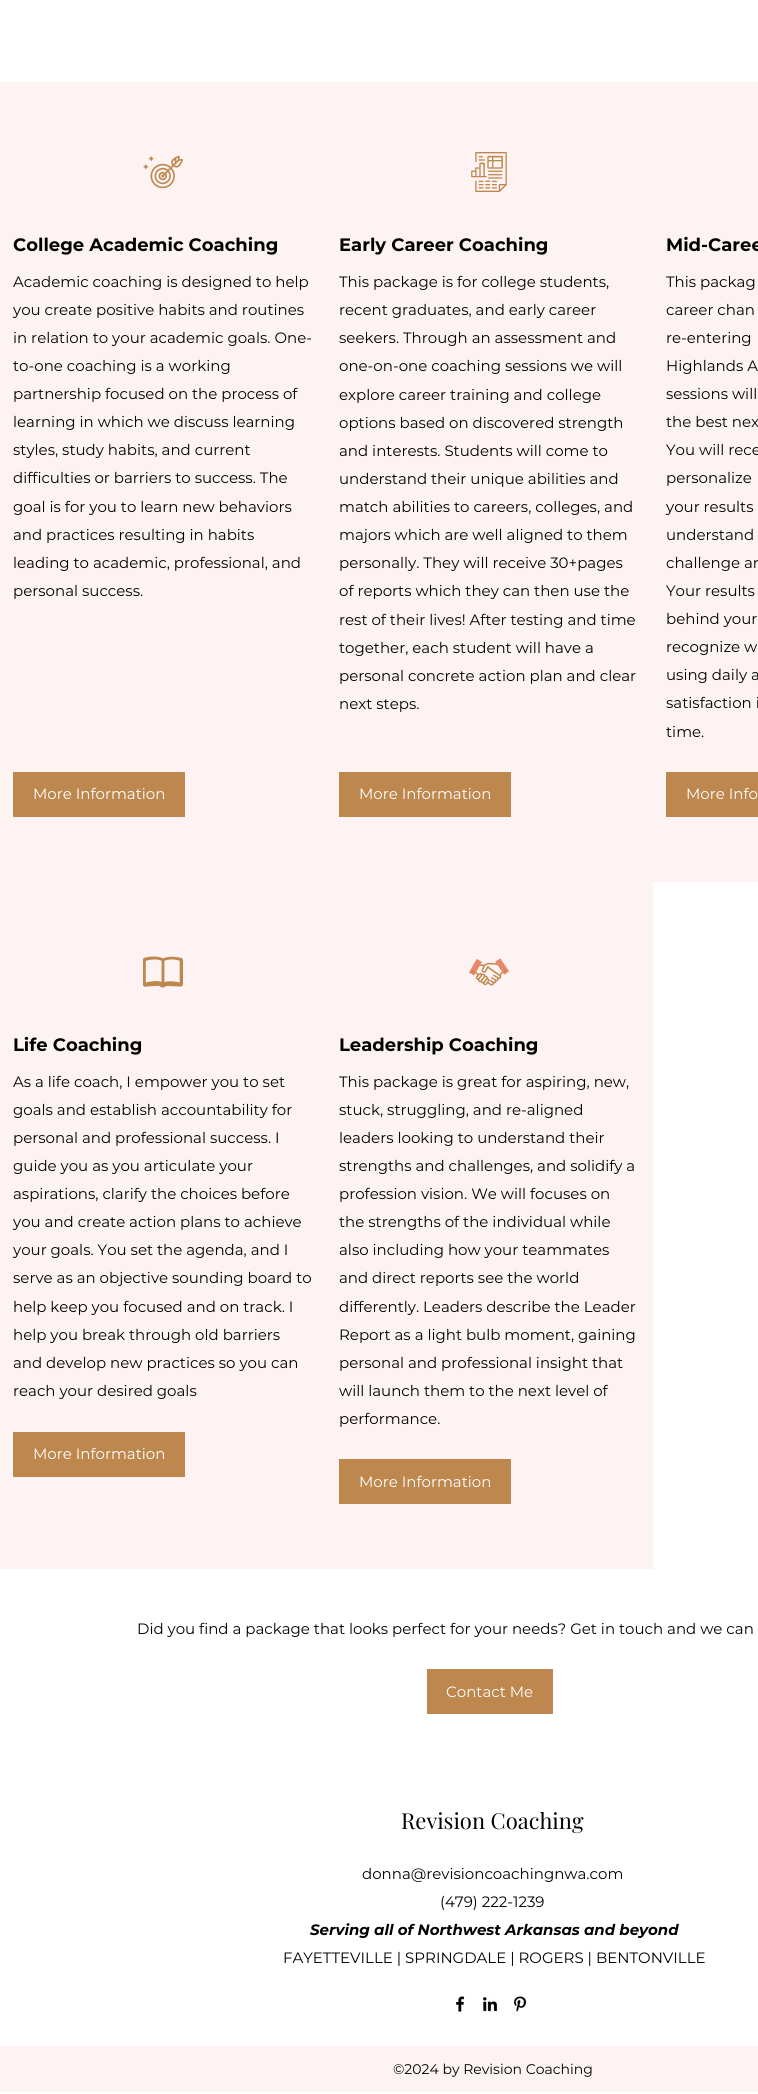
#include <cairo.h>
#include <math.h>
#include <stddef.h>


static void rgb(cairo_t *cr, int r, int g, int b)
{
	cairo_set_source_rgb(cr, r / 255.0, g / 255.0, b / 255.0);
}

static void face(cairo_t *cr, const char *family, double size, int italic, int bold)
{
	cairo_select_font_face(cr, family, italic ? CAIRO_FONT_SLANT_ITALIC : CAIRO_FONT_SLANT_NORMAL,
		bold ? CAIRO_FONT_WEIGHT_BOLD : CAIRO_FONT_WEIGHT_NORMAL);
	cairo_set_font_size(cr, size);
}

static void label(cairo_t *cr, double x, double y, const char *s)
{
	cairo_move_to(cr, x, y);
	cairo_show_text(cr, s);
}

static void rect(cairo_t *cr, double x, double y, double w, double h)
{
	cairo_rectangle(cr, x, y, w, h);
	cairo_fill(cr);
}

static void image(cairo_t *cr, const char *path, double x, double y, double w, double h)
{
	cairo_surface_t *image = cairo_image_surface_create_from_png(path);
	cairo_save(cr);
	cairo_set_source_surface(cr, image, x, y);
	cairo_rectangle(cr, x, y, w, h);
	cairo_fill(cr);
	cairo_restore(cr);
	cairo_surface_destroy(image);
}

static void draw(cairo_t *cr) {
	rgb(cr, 255, 255, 255);
	cairo_paint(cr);
	rgb(cr, 252, 243, 242);
	rect(cr, 0, 82, 758, 120);
	image(cr, "image0.png", 143, 155, 40, 34);
	image(cr, "image1.png", 471, 152, 36, 40);
	rect(cr, 0, 202, 758, 680);
	face(cr, "Montserrat", 18, 0, 1);
	rgb(cr, 0, 0, 0);
	label(cr, 13, 251, "College Academic Coaching");
	face(cr, "Montserrat", 15, 0, 0);
	label(cr, 13, 287, "Academic coaching is designed to help");
	label(cr, 13, 315, "you create positive habits and routines");
	label(cr, 13, 343, "in relation to your academic goals. One-");
	label(cr, 13, 371, "to-one coaching is a working");
	label(cr, 13, 399, "partnership focused on the process of");
	label(cr, 13, 427, "learning in which we discuss learning");
	label(cr, 13, 455, "styles, study habits, and current");
	label(cr, 13, 483, "difficulties or barriers to success. The");
	label(cr, 13, 512, "goal is for you to learn new behaviors");
	label(cr, 13, 540, "and practices resulting in habits");
	label(cr, 13, 568, "leading to academic, professional, and");
	label(cr, 13, 596, "personal success.");
	rgb(cr, 190, 135, 77);
	rect(cr, 13, 772, 172, 45);
	rgb(cr, 255, 255, 255);
	label(cr, 33, 799, "More Information");
	face(cr, "Montserrat", 18, 0, 1);
	rgb(cr, 0, 0, 0);
	label(cr, 339, 251, "Early Career Coaching");
	face(cr, "Montserrat", 15, 0, 0);
	label(cr, 339, 287, "This package is for college students,");
	label(cr, 339, 315, "recent graduates, and early career");
	label(cr, 339, 343, "seekers. Through an assessment and");
	label(cr, 339, 371, "one-on-one coaching sessions we will");
	label(cr, 339, 400, "explore career training and college");
	label(cr, 339, 428, "options based on discovered strength");
	label(cr, 339, 456, "and interests. Students will come to");
	label(cr, 339, 484, "understand their unique abilities and");
	label(cr, 339, 512, "match abilities to careers, colleges, and");
	label(cr, 339, 540, "majors which are well aligned to them");
	label(cr, 339, 568, "personally. They will receive 30+pages");
	label(cr, 339, 596, "of reports which they can then use the");
	label(cr, 339, 625, "rest of their lives! After testing and time");
	label(cr, 339, 653, "together, each student will have a");
	label(cr, 339, 681, "personal concrete action plan and clear");
	label(cr, 339, 709, "next steps.");
	rgb(cr, 190, 135, 77);
	rect(cr, 339, 772, 172, 45);
	rgb(cr, 255, 255, 255);
	label(cr, 359, 799, "More Information");
	face(cr, "Montserrat", 18, 0, 1);
	rgb(cr, 0, 0, 0);
	label(cr, 666, 251, "Mid-Caree");
	face(cr, "Montserrat", 15, 0, 0);
	label(cr, 666, 287, "This packag");
	label(cr, 666, 315, "career chan");
	label(cr, 666, 343, "re-entering");
	label(cr, 666, 371, "Highlands A");
	label(cr, 666, 399, "sessions will");
	label(cr, 666, 427, "the best nex");
	label(cr, 666, 455, "You will rece");
	label(cr, 666, 483, "personalize");
	label(cr, 666, 512, "your results");
	label(cr, 666, 540, "understand");
	label(cr, 666, 568, "challenge ar");
	label(cr, 666, 596, "Your results");
	label(cr, 666, 624, "behind your");
	label(cr, 666, 652, "recognize w");
	label(cr, 666, 680, "using daily a");
	label(cr, 666, 708, "satisfaction i");
	label(cr, 666, 737, "time.");
	rgb(cr, 190, 135, 77);
	rect(cr, 666, 772, 92, 45);
	rgb(cr, 255, 255, 255);
	label(cr, 686, 799, "More Info");
	rgb(cr, 252, 243, 242);
	rect(cr, 0, 882, 653, 120);
	image(cr, "image2.png", 143, 956, 40, 32);
	image(cr, "image3.png", 469, 958, 40, 28);
	rect(cr, 0, 1002, 653, 567);
	face(cr, "Montserrat", 18, 0, 1);
	rgb(cr, 0, 0, 0);
	label(cr, 13, 1051, "Life Coaching");
	face(cr, "Montserrat", 15, 0, 0);
	label(cr, 13, 1087, "As a life coach, I empower you to set");
	label(cr, 13, 1115, "goals and establish accountability for");
	label(cr, 13, 1143, "personal and professional success. I");
	label(cr, 13, 1171, "guide you as you articulate your");
	label(cr, 13, 1199, "aspirations, clarify the choices before");
	label(cr, 13, 1227, "you and create action plans to achieve");
	label(cr, 13, 1255, "your goals. You set the agenda, and I");
	label(cr, 13, 1283, "serve as an objective sounding board to");
	label(cr, 13, 1312, "help keep you focused and on track. I");
	label(cr, 13, 1340, "help you break through old barriers");
	label(cr, 13, 1368, "and develop new practices so you can");
	label(cr, 13, 1396, "reach your desired goals");
	rgb(cr, 190, 135, 77);
	rect(cr, 13, 1432, 172, 45);
	rgb(cr, 255, 255, 255);
	label(cr, 33, 1459, "More Information");
	face(cr, "Montserrat", 18, 0, 1);
	rgb(cr, 0, 0, 0);
	label(cr, 339, 1051, "Leadership Coaching");
	face(cr, "Montserrat", 15, 0, 0);
	label(cr, 339, 1087, "This package is great for aspiring, new,");
	label(cr, 339, 1115, "stuck, struggling, and re-aligned");
	label(cr, 339, 1143, "leaders looking to understand their");
	label(cr, 339, 1171, "strengths and challenges, and solidify a");
	label(cr, 339, 1199, "profession vision. We will focuses on");
	label(cr, 339, 1227, "the strengths of the individual while");
	label(cr, 339, 1255, "also including how your teammates");
	label(cr, 339, 1283, "and direct reports see the world");
	label(cr, 339, 1312, "differently. Leaders describe the Leader");
	label(cr, 339, 1340, "Report as a light bulb moment, gaining");
	label(cr, 339, 1368, "personal and professional insight that");
	label(cr, 339, 1396, "will launch them to the next level of");
	label(cr, 339, 1424, "performance.");
	rgb(cr, 190, 135, 77);
	rect(cr, 339, 1459, 172, 45);
	rgb(cr, 255, 255, 255);
	label(cr, 359, 1487, "More Information");
	rgb(cr, 0, 0, 0);
	label(cr, 137, 1634, "Did you find a package that looks perfect for your needs? Get in touch and we can");
	rgb(cr, 190, 135, 77);
	rect(cr, 427, 1669, 126, 45);
	rgb(cr, 255, 255, 255);
	label(cr, 446, 1697, "Contact Me");
	face(cr, "Playfair Display", 22, 0, 0);
	rgb(cr, 0, 0, 0);
	label(cr, 401, 1829, "Revision Coaching");
	face(cr, "Montserrat", 15, 0, 0);
	label(cr, 362, 1879, "donna@revisioncoachingnwa.com");
	label(cr, 440, 1907, "(479) 222-1239");
	face(cr, "Montserrat", 15, 1, 1);
	label(cr, 310, 1935, "Serving all of Northwest Arkansas and beyond");
	face(cr, "Montserrat", 15, 0, 0);
	label(cr, 283, 1963, "FAYETTEVILLE | SPRINGDALE | ROGERS | BENTONVILLE");
	image(cr, "image4.png", 456, 1996, 9, 16);
	image(cr, "image5.png", 483, 1997, 15, 15);
	image(cr, "image6.png", 513, 1996, 14, 16);
	rgb(cr, 252, 243, 242);
	rect(cr, 0, 2046, 758, 46);
	face(cr, "Montserrat", 14, 0, 0);
	rgb(cr, 0, 0, 0);
	label(cr, 393, 2074, "©2024 by Revision Coaching");
}

int main(void) {
	cairo_surface_t *surface = cairo_image_surface_create(CAIRO_FORMAT_RGB24, 758, 2094);
	cairo_t *cr = cairo_create(surface);
	cairo_font_options_t *options = cairo_font_options_create();
	cairo_font_options_set_hint_metrics(options, CAIRO_HINT_METRICS_OFF);
	cairo_font_options_set_hint_style(options, CAIRO_HINT_STYLE_NONE);
	cairo_set_font_options(cr, options);
	cairo_set_miter_limit(cr, 4);
	draw(cr);
	cairo_surface_write_to_png(surface, "render.png");
	cairo_font_options_destroy(options);
	cairo_destroy(cr);
	cairo_surface_destroy(surface);
	return 0;
}
